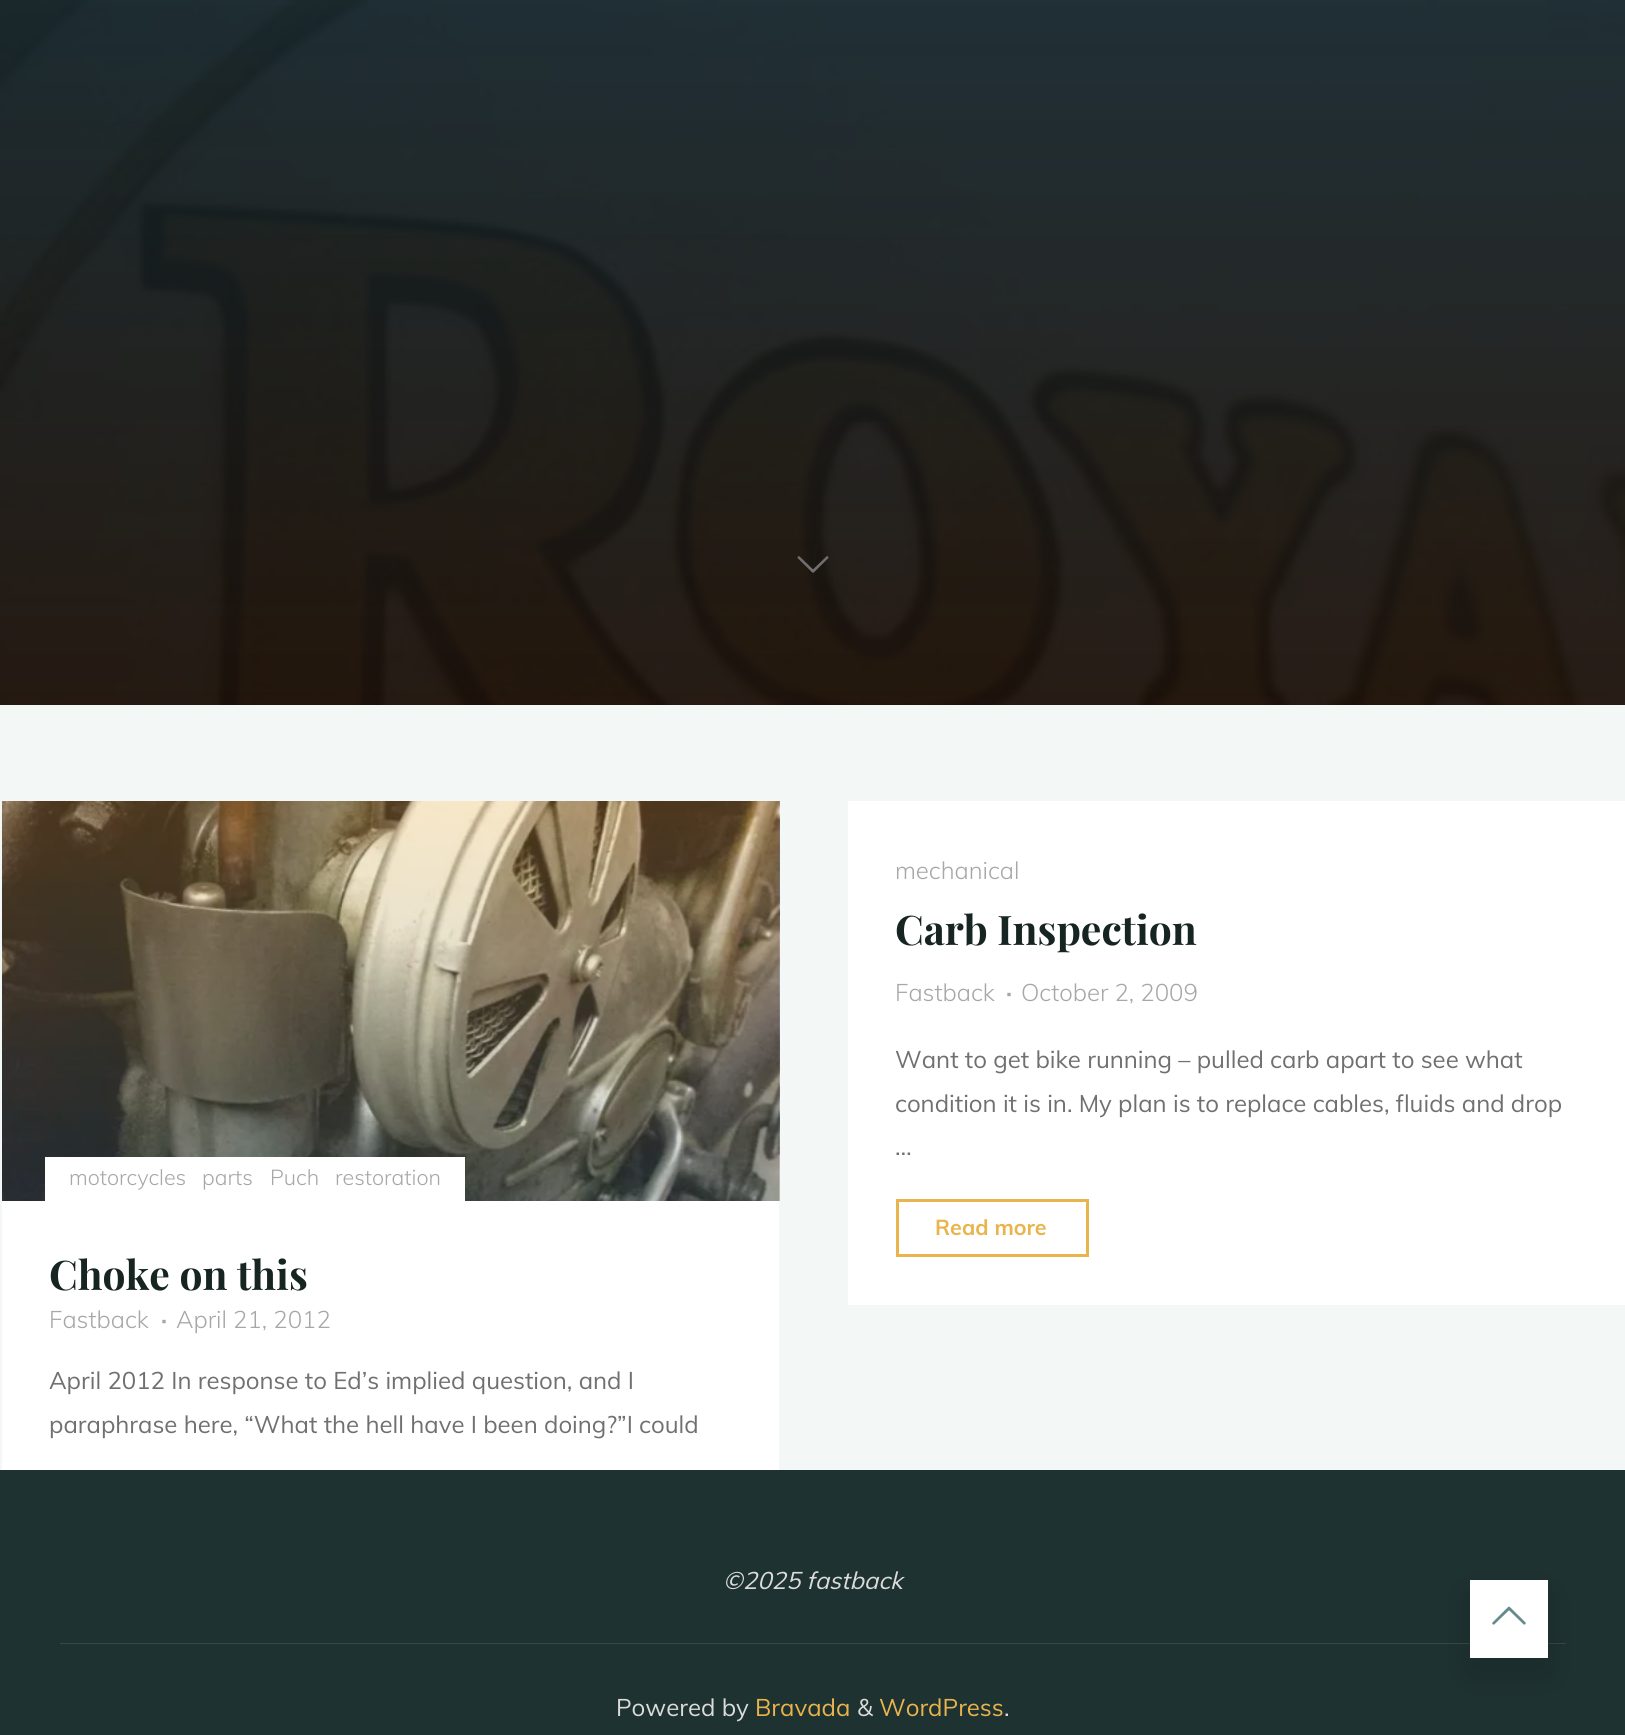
#include <cairo.h>
#include <math.h>
#include <stddef.h>


static void rgb(cairo_t *cr, int r, int g, int b)
{
	cairo_set_source_rgb(cr, r / 255.0, g / 255.0, b / 255.0);
}

static void face(cairo_t *cr, const char *family, double size, int italic, int bold)
{
	cairo_select_font_face(cr, family, italic ? CAIRO_FONT_SLANT_ITALIC : CAIRO_FONT_SLANT_NORMAL,
		bold ? CAIRO_FONT_WEIGHT_BOLD : CAIRO_FONT_WEIGHT_NORMAL);
	cairo_set_font_size(cr, size);
}

static void label(cairo_t *cr, double x, double y, const char *s)
{
	cairo_move_to(cr, x, y);
	cairo_show_text(cr, s);
}

static void rect(cairo_t *cr, double x, double y, double w, double h)
{
	cairo_rectangle(cr, x, y, w, h);
	cairo_fill(cr);
}

static void rrect(cairo_t *cr, double x, double y, double w, double h, double r)
{
	cairo_new_sub_path(cr);
	cairo_arc(cr, x + w - r, y + h - r, r, 0, M_PI / 2);
	cairo_arc(cr, x + r, y + h - r, r, M_PI / 2, M_PI);
	cairo_arc(cr, x + r, y + r, r, M_PI, 1.5 * M_PI);
	cairo_arc(cr, x + w - r, y + r, r, 1.5 * M_PI, 2 * M_PI);
	cairo_close_path(cr);
}

static void soft_shadow(cairo_t *cr, double x, double y, double w, double h, double r, double blur, double alpha)
{
	cairo_push_group_with_content(cr, CAIRO_CONTENT_ALPHA);
	cairo_set_operator(cr, CAIRO_OPERATOR_SOURCE);
	for (int i = 15; i >= -15 && fmin(w, h) + blur * i / 3 > 0; i -= 2) {
		double e = blur * i / 6;
		cairo_set_source_rgba(cr, 0, 0, 0, alpha * erfc((i - 1) / 8.5) / 2);
		rrect(cr, x - e, y - e, w + 2 * e, h + 2 * e, fmax(0, fmin(r + e + blur * .6, fmin(w, h) / 2 + e)));
		cairo_fill(cr);
	}
	cairo_pattern_t *soft = cairo_pop_group(cr);
	cairo_mask(cr, soft);
	cairo_pattern_destroy(soft);
}

static void image(cairo_t *cr, const char *path, double x, double y, double w, double h)
{
	cairo_surface_t *image = cairo_image_surface_create_from_png(path);
	cairo_save(cr);
	cairo_set_source_surface(cr, image, x, y);
	cairo_rectangle(cr, x, y, w, h);
	cairo_fill(cr);
	cairo_restore(cr);
	cairo_surface_destroy(image);
}

static void draw(cairo_t *cr) {
	rgb(cr, 243, 247, 246);
	cairo_paint(cr);
	image(cr, "image0.png", 0, 0, 1625, 705);
	image(cr, "image1.png", 797, 556, 32, 17);
	rgb(cr, 255, 255, 255);
	rect(cr, 848, 801, 777, 504);
	face(cr, "Muli Light", 24, 0, 0);
	rgb(cr, 167, 167, 167);
	label(cr, 895, 879, "mechanical");
	face(cr, "Playfair Display", 40.75, 0, 1);
	rgb(cr, 22, 37, 33);
	label(cr, 895, 945, "Carb Inspection");
	face(cr, "Muli Light", 24, 0, 0);
	rgb(cr, 167, 167, 167);
	label(cr, 895, 1001, "Fastback");
	face(cr, "Muli", 24, 0, 1);
	label(cr, 1006, 1001, "·");
	face(cr, "Muli Light", 24, 0, 0);
	label(cr, 1021, 1001, "October 2, 2009");
	face(cr, "Muli", 24, 0, 0);
	rgb(cr, 112, 112, 112);
	label(cr, 895, 1068, "Want to get bike running – pulled carb apart to see what");
	label(cr, 895, 1112, "condition it is in. My plan is to replace cables, fluids and drop");
	label(cr, 895, 1155, "…");
	cairo_rectangle(cr, 897.5, 1200.5, 190, 55);
	rgb(cr, 233, 180, 76);
	cairo_set_line_width(cr, 3);
	cairo_stroke(cr);
	face(cr, "Muli", 21.5, 0, 1);
	label(cr, 935, 1235, "Read more");
	rgb(cr, 255, 255, 255);
	rect(cr, 2, 1201, 777, 269);
	image(cr, "image2.png", 2, 801, 778, 400);
	rect(cr, 45, 1157, 420, 44);
	face(cr, "Muli Light", 21.5, 0, 0);
	rgb(cr, 167, 167, 167);
	label(cr, 69, 1185, "motorcycles");
	label(cr, 202, 1185, "parts");
	label(cr, 270, 1185, "Puch");
	label(cr, 335, 1185, "restoration");
	face(cr, "Playfair Display", 40.75, 0, 1);
	rgb(cr, 22, 37, 33);
	label(cr, 49, 1290, "Choke on this");
	face(cr, "Muli Light", 24, 0, 0);
	rgb(cr, 167, 167, 167);
	label(cr, 49, 1328, "Fastback");
	face(cr, "Muli", 24, 0, 1);
	label(cr, 161, 1328, "·");
	face(cr, "Muli Light", 24, 0, 0);
	label(cr, 176, 1328, "April 21, 2012");
	face(cr, "Muli", 24, 0, 0);
	rgb(cr, 112, 112, 112);
	label(cr, 49, 1389, "April 2012 In response to Ed’s implied question, and I");
	label(cr, 49, 1433, "paraphrase here, “What the hell have I been doing?”I could");
	rgb(cr, 30, 50, 49);
	rect(cr, 0, 1470, 1625, 265);
	face(cr, "Muli", 24, 1, 0);
	rgb(cr, 219, 219, 219);
	label(cr, 723, 1589, "©2025 fastback");
	rgb(cr, 53, 71, 70);
	rect(cr, 60, 1643, 1506, 1);
	rgb(cr, 0, 0, 0);
	soft_shadow(cr, 1470, 1595, 78, 78, 0, 15, 0.15);
	rgb(cr, 255, 255, 255);
	rect(cr, 1470, 1580, 78, 78);
	image(cr, "image3.png", 1492, 1606, 34, 19);
	face(cr, "Muli", 24, 0, 0);
	rgb(cr, 219, 219, 219);
	label(cr, 616, 1716, "Powered by");
	rgb(cr, 233, 180, 76);
	label(cr, 755, 1716, "Bravada");
	rgb(cr, 219, 219, 219);
	label(cr, 857, 1716, "&");
	rgb(cr, 233, 180, 76);
	label(cr, 879, 1716, "WordPress");
	rgb(cr, 219, 219, 219);
	label(cr, 1004, 1716, ".");
}

int main(void) {
	cairo_surface_t *surface = cairo_image_surface_create(CAIRO_FORMAT_RGB24, 1625, 1735);
	cairo_t *cr = cairo_create(surface);
	cairo_font_options_t *options = cairo_font_options_create();
	cairo_font_options_set_hint_metrics(options, CAIRO_HINT_METRICS_OFF);
	cairo_font_options_set_hint_style(options, CAIRO_HINT_STYLE_NONE);
	cairo_set_font_options(cr, options);
	cairo_set_miter_limit(cr, 4);
	draw(cr);
	cairo_surface_write_to_png(surface, "render.png");
	cairo_font_options_destroy(options);
	cairo_destroy(cr);
	cairo_surface_destroy(surface);
	return 0;
}
